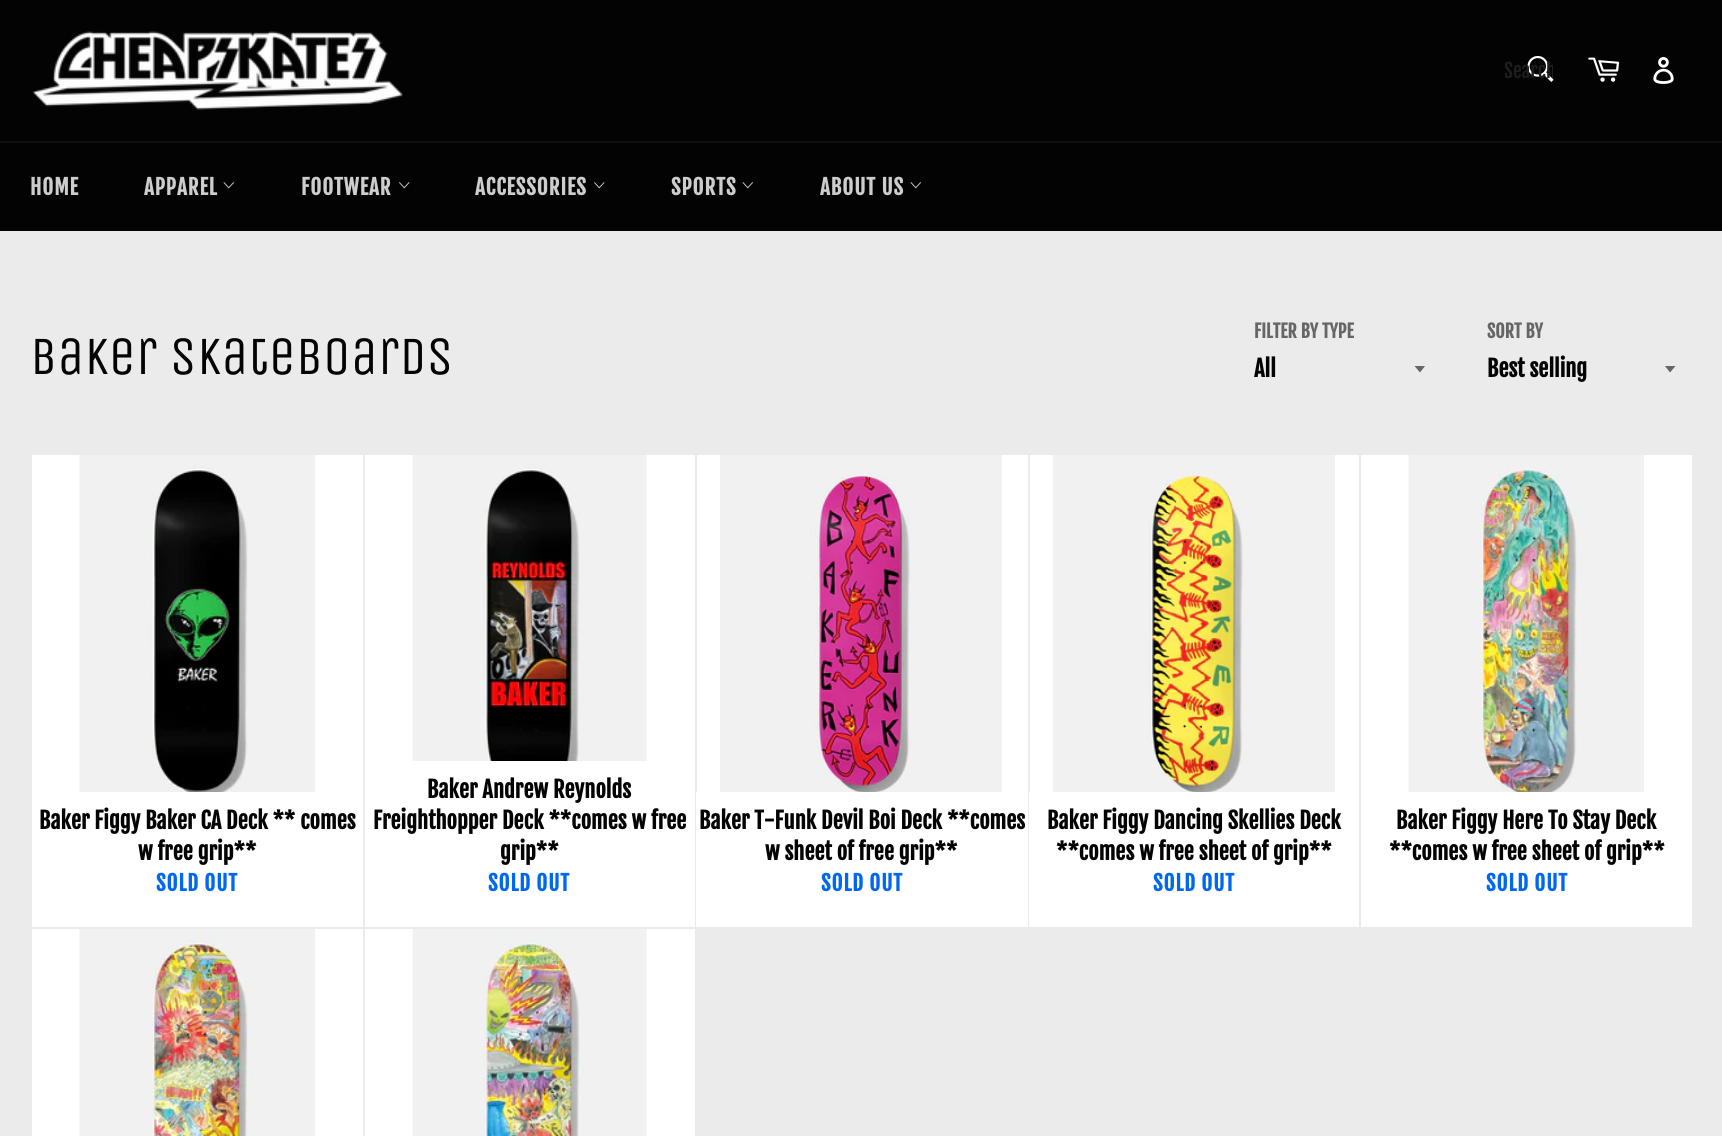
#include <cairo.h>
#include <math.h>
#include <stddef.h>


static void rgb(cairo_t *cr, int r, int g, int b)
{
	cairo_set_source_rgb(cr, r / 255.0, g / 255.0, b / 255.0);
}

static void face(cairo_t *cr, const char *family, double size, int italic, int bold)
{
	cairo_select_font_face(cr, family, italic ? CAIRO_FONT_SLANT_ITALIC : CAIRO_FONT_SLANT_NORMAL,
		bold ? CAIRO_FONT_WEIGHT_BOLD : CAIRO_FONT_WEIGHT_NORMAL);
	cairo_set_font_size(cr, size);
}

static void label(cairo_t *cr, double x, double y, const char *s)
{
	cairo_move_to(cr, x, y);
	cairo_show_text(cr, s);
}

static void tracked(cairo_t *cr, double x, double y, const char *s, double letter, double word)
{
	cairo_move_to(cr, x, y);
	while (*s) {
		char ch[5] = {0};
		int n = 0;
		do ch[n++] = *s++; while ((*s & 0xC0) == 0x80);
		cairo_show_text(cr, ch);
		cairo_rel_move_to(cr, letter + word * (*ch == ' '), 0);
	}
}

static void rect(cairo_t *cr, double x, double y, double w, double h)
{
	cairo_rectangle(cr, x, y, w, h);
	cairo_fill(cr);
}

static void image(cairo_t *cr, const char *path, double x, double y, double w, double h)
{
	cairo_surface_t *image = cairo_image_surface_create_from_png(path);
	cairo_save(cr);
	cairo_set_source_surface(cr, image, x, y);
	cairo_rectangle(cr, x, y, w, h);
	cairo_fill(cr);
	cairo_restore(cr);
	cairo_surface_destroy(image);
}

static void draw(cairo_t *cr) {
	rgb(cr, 235, 235, 235);
	cairo_paint(cr);
	rgb(cr, 3, 3, 3);
	rect(cr, 0, 0, 1722, 141);
	image(cr, "image0.png", 32, 31, 371, 79);
	image(cr, "image1.png", 1527, 55, 27, 27);
	cairo_save(cr);
	cairo_rectangle(cr, 1505, 59, 48, 24);
	cairo_clip(cr);
	face(cr, "Fjalla One", 19.5, 0, 0);
	rgb(cr, 30, 30, 30);
	label(cr, 1504, 78, "Search");
	cairo_restore(cr);
	image(cr, "image2.png", 1588, 57, 31, 25);
	image(cr, "image3.png", 1653, 57, 21, 27);
	rect(cr, 0, 143, 1722, 88);
	rgb(cr, 16, 16, 16);
	rect(cr, 0, 141, 1722, 2);
	face(cr, "Fjalla One", 21, 0, 1);
	rgb(cr, 205, 205, 205);
	tracked(cr, 30, 195, "HOME", 0.9, 0);
	tracked(cr, 144, 195, "APPAREL", 0.9, 0);
	image(cr, "image4.png", 223, 182, 11, 7);
	tracked(cr, 301, 195, "FOOTWEAR", 0.9, 0);
	image(cr, "image5.png", 399, 182, 11, 7);
	tracked(cr, 475, 195, "ACCESSORIES", 0.9, 0);
	image(cr, "image5.png", 594, 182, 11, 7);
	tracked(cr, 671, 195, "SPORTS", 0.9, 0);
	image(cr, "image4.png", 742, 182, 11, 7);
	tracked(cr, 820, 195, "ABOUT US", 0.9, 0);
	image(cr, "image4.png", 910, 182, 11, 7);
	face(cr, "Unica One", 54, 0, 0);
	rgb(cr, 3, 3, 3);
	label(cr, 30, 374, "Baker Skateboards");
	face(cr, "Fjalla One", 18, 0, 1);
	rgb(cr, 102, 102, 102);
	label(cr, 1254, 338, "FILTER BY TYPE");
	cairo_new_path(cr);
	cairo_move_to(cr, 1414.5, 366);
	cairo_line_to(cr, 1420, 372.5);
	cairo_line_to(cr, 1425, 366);
	cairo_close_path(cr);
	cairo_fill(cr);
	face(cr, "Fjalla One", 22.5, 0, 1);
	rgb(cr, 3, 3, 3);
	label(cr, 1254, 377, "All");
	face(cr, "Fjalla One", 18, 0, 1);
	rgb(cr, 102, 102, 102);
	label(cr, 1487, 338, "SORT BY");
	cairo_new_path(cr);
	cairo_move_to(cr, 1665, 366);
	cairo_line_to(cr, 1670, 372.5);
	cairo_line_to(cr, 1675.5, 366);
	cairo_close_path(cr);
	cairo_fill(cr);
	face(cr, "Fjalla One", 22.5, 0, 1);
	rgb(cr, 3, 3, 3);
	label(cr, 1487, 377, "Best selling");
	rgb(cr, 255, 255, 255);
	rect(cr, 32, 455, 331, 472);
	image(cr, "image6.png", 79, 455, 236, 337);
	rgb(cr, 3, 3, 3);
	label(cr, 39, 829, "Baker Figgy Baker CA Deck ** comes");
	label(cr, 138, 860, "w free grip**");
	face(cr, "Fjalla One", 21, 0, 1);
	rgb(cr, 0, 103, 240);
	tracked(cr, 156, 891, "SOLD OUT", 0.9, 0);
	rgb(cr, 255, 255, 255);
	rect(cr, 365, 455, 330, 472);
	image(cr, "image7.png", 412, 455, 235, 306);
	face(cr, "Fjalla One", 22.5, 0, 1);
	rgb(cr, 3, 3, 3);
	label(cr, 427, 798, "Baker Andrew Reynolds");
	label(cr, 373, 829, "Freighthopper Deck **comes w free");
	label(cr, 500, 860, "grip**");
	face(cr, "Fjalla One", 21, 0, 1);
	rgb(cr, 0, 103, 240);
	tracked(cr, 488, 891, "SOLD OUT", 0.9, 0);
	rgb(cr, 255, 255, 255);
	rect(cr, 697, 455, 331, 337);
	image(cr, "image8.png", 720, 455, 282, 337);
	rect(cr, 696, 792, 332, 135);
	face(cr, "Fjalla One", 22.5, 0, 1);
	rgb(cr, 3, 3, 3);
	label(cr, 699, 829, "Baker T-Funk Devil Boi Deck **comes");
	label(cr, 765, 860, "w sheet of free grip**");
	face(cr, "Fjalla One", 21, 0, 1);
	rgb(cr, 0, 103, 240);
	tracked(cr, 821, 891, "SOLD OUT", 0.9, 0);
	rgb(cr, 255, 255, 255);
	rect(cr, 1030, 455, 329, 337);
	image(cr, "image9.png", 1053, 455, 282, 337);
	rect(cr, 1029, 792, 330, 135);
	face(cr, "Fjalla One", 22.5, 0, 1);
	rgb(cr, 3, 3, 3);
	label(cr, 1047, 829, "Baker Figgy Dancing Skellies Deck");
	label(cr, 1056, 860, "**comes w free sheet of grip**");
	face(cr, "Fjalla One", 21, 0, 1);
	rgb(cr, 0, 103, 240);
	tracked(cr, 1153, 891, "SOLD OUT", 0.9, 0);
	rgb(cr, 255, 255, 255);
	rect(cr, 1361, 455, 331, 472);
	image(cr, "image10.png", 1408, 455, 236, 337);
	face(cr, "Fjalla One", 22.5, 0, 1);
	rgb(cr, 3, 3, 3);
	label(cr, 1396, 829, "Baker Figgy Here To Stay Deck");
	label(cr, 1389, 860, "**comes w free sheet of grip**");
	face(cr, "Fjalla One", 21, 0, 1);
	rgb(cr, 0, 103, 240);
	tracked(cr, 1486, 891, "SOLD OUT", 0.9, 0);
	rgb(cr, 255, 255, 255);
	rect(cr, 32, 929, 331, 207);
	image(cr, "image11.png", 79, 929, 236, 207);
	rect(cr, 365, 929, 330, 207);
	image(cr, "image12.png", 412, 929, 235, 207);
}

int main(void) {
	cairo_surface_t *surface = cairo_image_surface_create(CAIRO_FORMAT_RGB24, 1722, 1136);
	cairo_t *cr = cairo_create(surface);
	cairo_font_options_t *options = cairo_font_options_create();
	cairo_font_options_set_hint_metrics(options, CAIRO_HINT_METRICS_OFF);
	cairo_font_options_set_hint_style(options, CAIRO_HINT_STYLE_NONE);
	cairo_set_font_options(cr, options);
	cairo_set_miter_limit(cr, 4);
	draw(cr);
	cairo_surface_write_to_png(surface, "render.png");
	cairo_font_options_destroy(options);
	cairo_destroy(cr);
	cairo_surface_destroy(surface);
	return 0;
}
